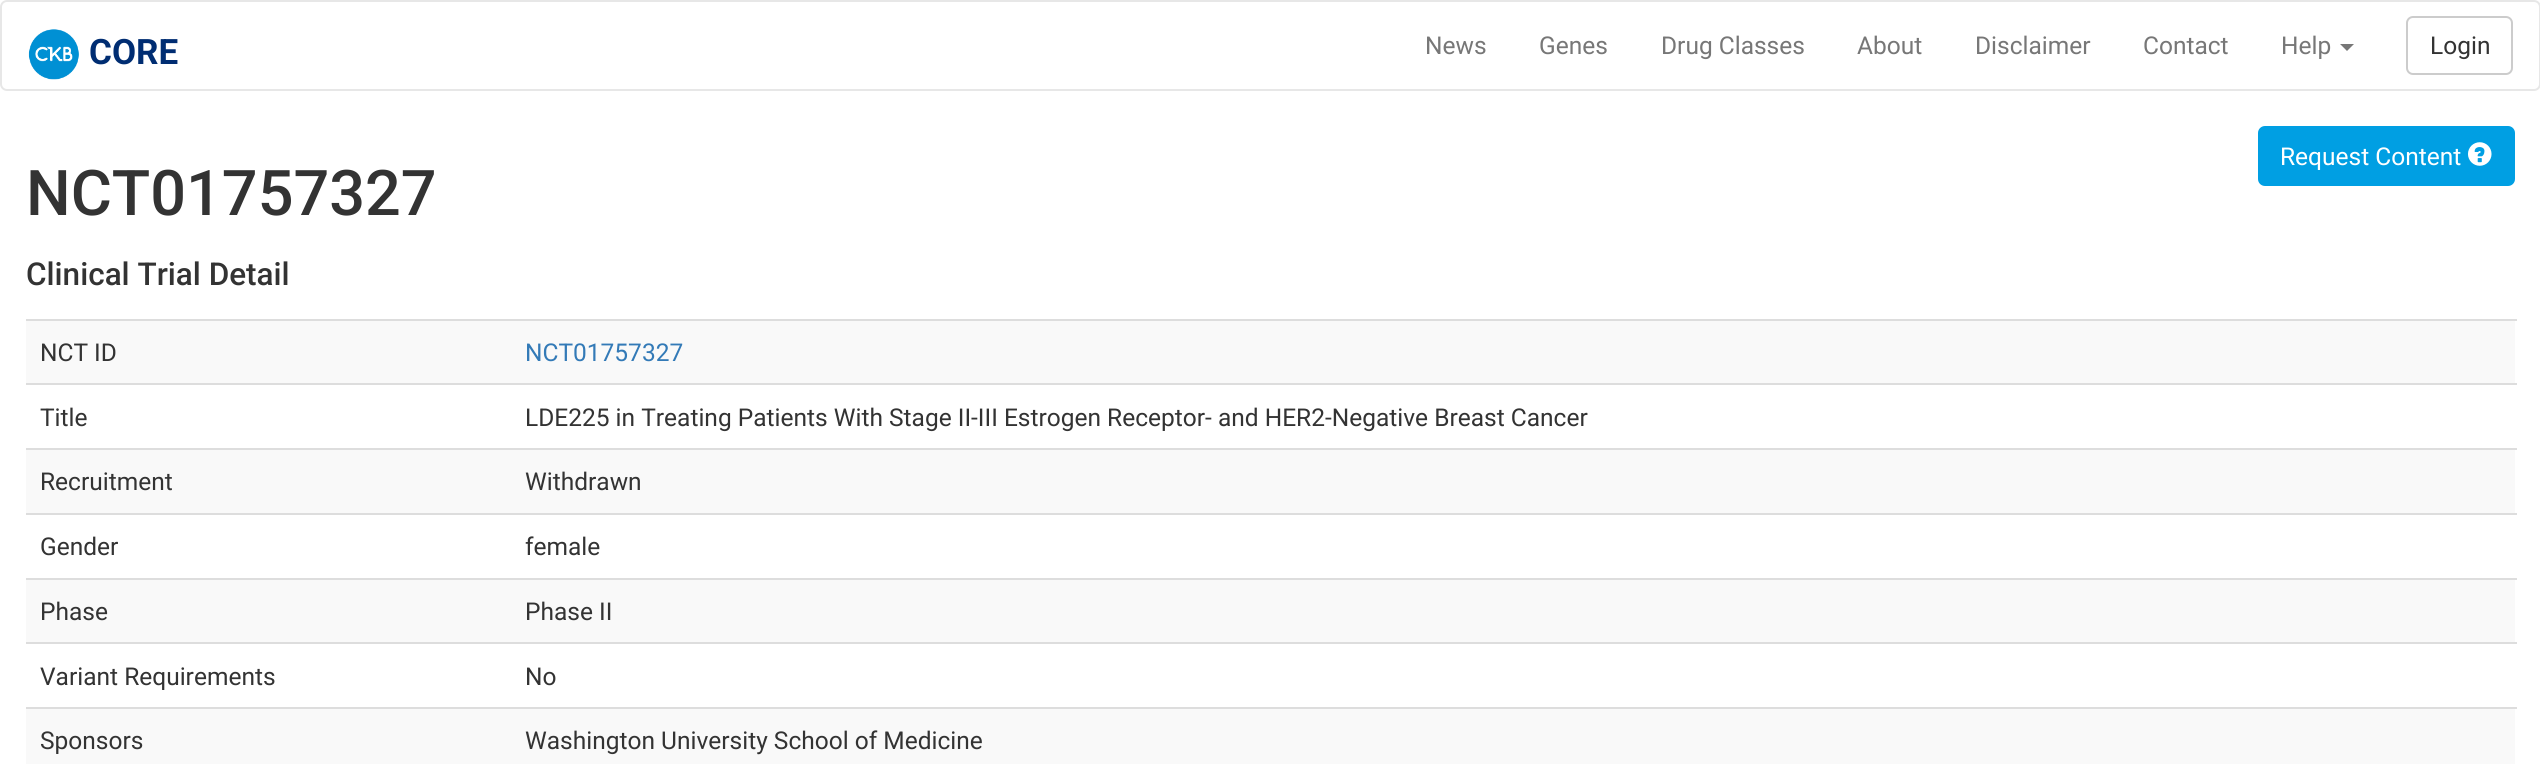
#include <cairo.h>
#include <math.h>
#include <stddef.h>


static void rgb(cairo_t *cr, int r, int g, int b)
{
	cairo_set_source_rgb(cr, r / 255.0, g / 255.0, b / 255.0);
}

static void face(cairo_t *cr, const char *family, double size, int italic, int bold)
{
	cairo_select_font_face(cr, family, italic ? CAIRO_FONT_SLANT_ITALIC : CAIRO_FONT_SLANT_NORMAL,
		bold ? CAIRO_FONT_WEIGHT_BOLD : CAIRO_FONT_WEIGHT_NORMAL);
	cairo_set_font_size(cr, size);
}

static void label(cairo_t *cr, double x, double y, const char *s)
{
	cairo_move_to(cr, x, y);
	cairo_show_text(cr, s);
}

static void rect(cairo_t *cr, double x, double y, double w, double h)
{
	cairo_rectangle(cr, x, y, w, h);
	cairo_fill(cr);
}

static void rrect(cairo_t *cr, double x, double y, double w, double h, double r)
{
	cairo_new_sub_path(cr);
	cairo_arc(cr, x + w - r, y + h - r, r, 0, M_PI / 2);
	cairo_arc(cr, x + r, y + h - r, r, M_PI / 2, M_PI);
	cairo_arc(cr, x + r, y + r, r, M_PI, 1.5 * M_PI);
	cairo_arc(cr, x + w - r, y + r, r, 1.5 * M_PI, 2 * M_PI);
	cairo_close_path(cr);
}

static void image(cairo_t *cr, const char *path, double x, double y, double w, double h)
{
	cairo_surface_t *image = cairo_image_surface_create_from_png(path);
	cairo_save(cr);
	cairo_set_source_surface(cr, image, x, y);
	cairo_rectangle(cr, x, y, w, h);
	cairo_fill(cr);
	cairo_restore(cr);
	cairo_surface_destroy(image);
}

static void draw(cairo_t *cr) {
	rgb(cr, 255, 255, 255);
	cairo_paint(cr);
	rrect(cr, 1, 1, 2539, 89, 6);
	rgb(cr, 231, 231, 231);
	cairo_stroke(cr);
	image(cr, "image0.png", 28, 29, 51, 51);
	face(cr, "Roboto", 35, 0, 1);
	rgb(cr, 0, 45, 114);
	label(cr, 89, 64, "CORE");
	face(cr, "Roboto", 24.5, 0, 0);
	rgb(cr, 119, 119, 119);
	label(cr, 1425, 54, "News");
	label(cr, 1539, 54, "Genes");
	label(cr, 1661, 54, "Drug Classes");
	label(cr, 1857, 54, "About");
	label(cr, 1975, 54, "Disclaimer");
	label(cr, 2143, 54, "Contact");
	label(cr, 2281, 54, "Help");
	cairo_new_path(cr);
	cairo_move_to(cr, 2340, 44);
	cairo_line_to(cr, 2354, 44);
	cairo_line_to(cr, 2347, 51);
	cairo_close_path(cr);
	cairo_fill(cr);
	rrect(cr, 2407, 17, 105, 57, 6);
	rgb(cr, 204, 204, 204);
	cairo_stroke(cr);
	rgb(cr, 51, 51, 51);
	label(cr, 2430, 54, "Login");
	rgb(cr, 0, 159, 227);
	rrect(cr, 2259, 127, 255, 58, 6);
	cairo_fill_preserve(cr);
	cairo_stroke(cr);
	rgb(cr, 255, 255, 255);
	label(cr, 2280, 165, "Request Content");
	image(cr, "image1.png", 2468, 142, 24, 24);
	face(cr, "Roboto Medium", 63, 0, 0);
	rgb(cr, 51, 51, 51);
	label(cr, 26, 215, "NCT01757327");
	face(cr, "Roboto Medium", 31.5, 0, 0);
	label(cr, 26, 285, "Clinical Trial Detail");
	rgb(cr, 249, 249, 249);
	rect(cr, 26, 321, 2489, 62);
	face(cr, "Roboto", 24.5, 0, 0);
	rgb(cr, 51, 51, 51);
	label(cr, 40, 361, "NCT ID");
	rgb(cr, 221, 221, 221);
	rect(cr, 26, 319, 2491, 2);
	rgb(cr, 51, 122, 183);
	label(cr, 525, 361, "NCT01757327");
	rgb(cr, 51, 51, 51);
	label(cr, 40, 426, "Title");
	rgb(cr, 221, 221, 221);
	rect(cr, 26, 383, 2491, 2);
	rgb(cr, 51, 51, 51);
	label(cr, 525, 426, "LDE225 in Treating Patients With Stage II-III Estrogen Receptor- and HER2-Negative Breast Cancer");
	rgb(cr, 249, 249, 249);
	rect(cr, 26, 450, 2489, 63);
	rgb(cr, 51, 51, 51);
	label(cr, 40, 490, "Recruitment");
	rgb(cr, 221, 221, 221);
	rect(cr, 26, 448, 2491, 2);
	rgb(cr, 51, 51, 51);
	label(cr, 525, 490, "Withdrawn");
	label(cr, 40, 555, "Gender");
	rgb(cr, 221, 221, 221);
	rect(cr, 26, 513, 2491, 2);
	rgb(cr, 51, 51, 51);
	label(cr, 525, 555, "female");
	rgb(cr, 249, 249, 249);
	rect(cr, 26, 580, 2489, 62);
	rgb(cr, 51, 51, 51);
	label(cr, 40, 620, "Phase");
	rgb(cr, 221, 221, 221);
	rect(cr, 26, 578, 2491, 2);
	rgb(cr, 51, 51, 51);
	label(cr, 525, 620, "Phase II");
	label(cr, 40, 685, "Variant Requirements");
	rgb(cr, 221, 221, 221);
	rect(cr, 26, 642, 2491, 2);
	rgb(cr, 51, 51, 51);
	label(cr, 525, 685, "No");
	rgb(cr, 249, 249, 249);
	rect(cr, 26, 709, 2489, 55);
	rgb(cr, 51, 51, 51);
	label(cr, 40, 749, "Sponsors");
	rgb(cr, 221, 221, 221);
	rect(cr, 26, 707, 2491, 2);
	rgb(cr, 51, 51, 51);
	label(cr, 525, 749, "Washington University School of Medicine");
}

int main(void) {
	cairo_surface_t *surface = cairo_image_surface_create(CAIRO_FORMAT_RGB24, 2540, 764);
	cairo_t *cr = cairo_create(surface);
	cairo_font_options_t *options = cairo_font_options_create();
	cairo_font_options_set_hint_metrics(options, CAIRO_HINT_METRICS_OFF);
	cairo_font_options_set_hint_style(options, CAIRO_HINT_STYLE_NONE);
	cairo_set_font_options(cr, options);
	cairo_set_miter_limit(cr, 4);
	draw(cr);
	cairo_surface_write_to_png(surface, "render.png");
	cairo_font_options_destroy(options);
	cairo_destroy(cr);
	cairo_surface_destroy(surface);
	return 0;
}
